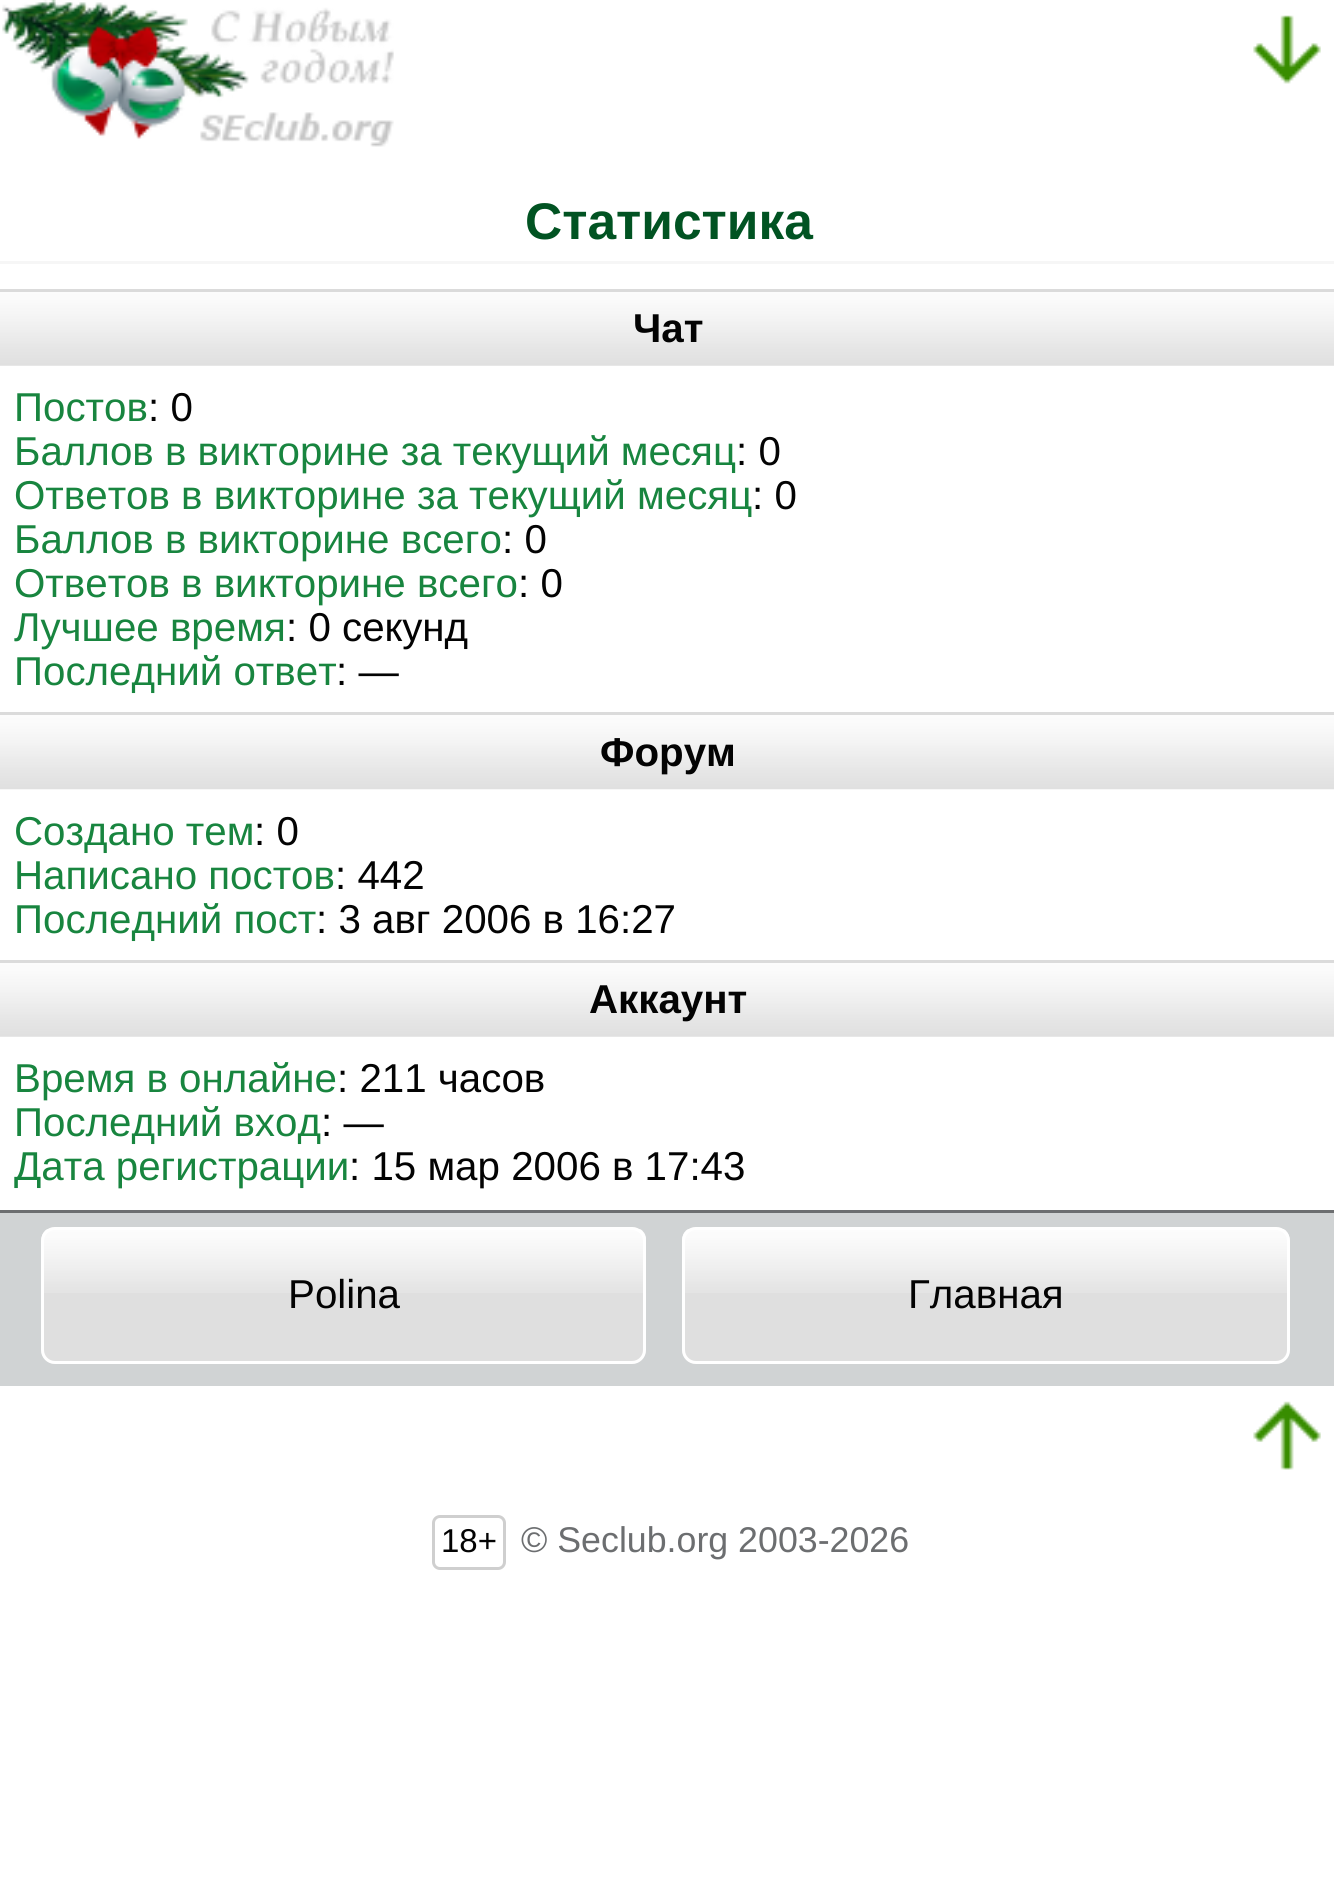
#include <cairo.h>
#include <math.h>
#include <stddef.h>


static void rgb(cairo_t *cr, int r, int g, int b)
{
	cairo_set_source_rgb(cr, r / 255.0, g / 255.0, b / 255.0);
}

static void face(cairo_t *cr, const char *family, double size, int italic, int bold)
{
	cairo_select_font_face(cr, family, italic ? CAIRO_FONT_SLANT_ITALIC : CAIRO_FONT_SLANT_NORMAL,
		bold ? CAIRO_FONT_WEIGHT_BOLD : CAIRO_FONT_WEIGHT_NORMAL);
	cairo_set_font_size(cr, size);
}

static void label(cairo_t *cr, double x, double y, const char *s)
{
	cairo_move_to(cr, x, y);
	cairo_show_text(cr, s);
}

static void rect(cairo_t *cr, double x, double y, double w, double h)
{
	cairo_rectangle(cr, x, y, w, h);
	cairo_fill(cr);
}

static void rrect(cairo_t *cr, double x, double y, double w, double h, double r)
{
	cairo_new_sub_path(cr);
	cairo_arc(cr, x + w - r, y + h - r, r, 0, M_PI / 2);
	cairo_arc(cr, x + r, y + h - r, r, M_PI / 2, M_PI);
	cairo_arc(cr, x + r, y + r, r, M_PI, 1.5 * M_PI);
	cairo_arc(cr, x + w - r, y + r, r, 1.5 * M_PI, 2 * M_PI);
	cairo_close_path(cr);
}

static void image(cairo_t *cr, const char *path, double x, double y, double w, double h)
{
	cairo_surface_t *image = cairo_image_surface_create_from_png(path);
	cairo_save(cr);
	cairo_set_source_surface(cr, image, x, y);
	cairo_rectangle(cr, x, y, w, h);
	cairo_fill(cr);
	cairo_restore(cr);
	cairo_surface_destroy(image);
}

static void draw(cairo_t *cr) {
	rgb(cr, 255, 255, 255);
	cairo_paint(cr);
	image(cr, "image0.png", 2, 0, 392, 147);
	image(cr, "image1.png", 1253, 15, 68, 69);
	rgb(cr, 246, 246, 246);
	rect(cr, 0, 261, 1334, 3);
	face(cr, "Liberation Sans", 51.5, 0, 1);
	rgb(cr, 1, 83, 34);
	label(cr, 525, 239, "Статистика");
	image(cr, "image2.png", 0, 292, 1334, 74);
	rgb(cr, 219, 219, 219);
	rect(cr, 0, 289, 1334, 3);
	face(cr, "Liberation Sans", 40.3, 0, 1);
	rgb(cr, 3, 3, 3);
	label(cr, 633, 342, "Чат");
	face(cr, "Liberation Sans", 40.3, 0, 0);
	rgb(cr, 24, 133, 63);
	label(cr, 14, 421, "Постов");
	rgb(cr, 3, 3, 3);
	label(cr, 148, 421, ": 0");
	rgb(cr, 24, 133, 63);
	label(cr, 14, 465, "Баллов в викторине за текущий месяц");
	rgb(cr, 3, 3, 3);
	label(cr, 736, 465, ": 0");
	rgb(cr, 24, 133, 63);
	label(cr, 14, 509, "Ответов в викторине за текущий месяц");
	rgb(cr, 3, 3, 3);
	label(cr, 752, 509, ": 0");
	rgb(cr, 24, 133, 63);
	label(cr, 14, 553, "Баллов в викторине всего");
	rgb(cr, 3, 3, 3);
	label(cr, 502, 553, ": 0");
	rgb(cr, 24, 133, 63);
	label(cr, 14, 597, "Ответов в викторине всего");
	rgb(cr, 3, 3, 3);
	label(cr, 518, 597, ": 0");
	rgb(cr, 24, 133, 63);
	label(cr, 14, 641, "Лучшее время");
	rgb(cr, 3, 3, 3);
	label(cr, 286, 641, ": 0 секунд");
	rgb(cr, 24, 133, 63);
	label(cr, 14, 685, "Последний ответ");
	rgb(cr, 3, 3, 3);
	label(cr, 336, 685, ": —");
	image(cr, "image3.png", 0, 715, 1334, 75);
	rgb(cr, 219, 219, 219);
	rect(cr, 0, 712, 1334, 3);
	face(cr, "Liberation Sans", 40.3, 0, 1);
	rgb(cr, 3, 3, 3);
	label(cr, 600, 766, "Форум");
	face(cr, "Liberation Sans", 40.3, 0, 0);
	rgb(cr, 24, 133, 63);
	label(cr, 14, 845, "Создано тем");
	rgb(cr, 3, 3, 3);
	label(cr, 254, 845, ": 0");
	rgb(cr, 24, 133, 63);
	label(cr, 14, 889, "Написано постов");
	rgb(cr, 3, 3, 3);
	label(cr, 335, 889, ": 442");
	rgb(cr, 24, 133, 63);
	label(cr, 14, 933, "Последний пост");
	rgb(cr, 3, 3, 3);
	label(cr, 316, 933, ": 3 авг 2006 в 16:27");
	image(cr, "image2.png", 0, 963, 1334, 74);
	rgb(cr, 219, 219, 219);
	rect(cr, 0, 960, 1334, 3);
	face(cr, "Liberation Sans", 40.3, 0, 1);
	rgb(cr, 3, 3, 3);
	label(cr, 589, 1013, "Аккаунт");
	face(cr, "Liberation Sans", 40.3, 0, 0);
	rgb(cr, 24, 133, 63);
	label(cr, 14, 1092, "Время в онлайне");
	rgb(cr, 3, 3, 3);
	label(cr, 337, 1092, ": 211 часов");
	rgb(cr, 24, 133, 63);
	label(cr, 14, 1136, "Последний вход");
	rgb(cr, 3, 3, 3);
	label(cr, 321, 1136, ": —");
	rgb(cr, 24, 133, 63);
	label(cr, 14, 1180, "Дата регистрации");
	rgb(cr, 3, 3, 3);
	label(cr, 349, 1180, ": 15 мар 2006 в 17:43");
	rgb(cr, 208, 211, 212);
	rect(cr, 0, 1213, 1334, 173);
	rgb(cr, 108, 110, 112);
	rect(cr, 0, 1210, 1334, 3);
	rgb(cr, 223, 223, 223);
	rrect(cr, 41, 1227, 605, 137, 14);
	cairo_fill(cr);
	image(cr, "image4.png", 41, 1229, 605, 64);
	rrect(cr, 42.5, 1228.5, 602, 134, 12.5);
	rgb(cr, 255, 255, 255);
	cairo_set_line_width(cr, 3);
	cairo_stroke(cr);
	rgb(cr, 3, 3, 3);
	label(cr, 288, 1308, "Polina");
	rgb(cr, 223, 223, 223);
	rrect(cr, 682, 1227, 608, 137, 14);
	cairo_fill(cr);
	image(cr, "image5.png", 682, 1229, 608, 64);
	rrect(cr, 683.5, 1228.5, 605, 134, 12.5);
	rgb(cr, 255, 255, 255);
	cairo_stroke(cr);
	rgb(cr, 3, 3, 3);
	label(cr, 908, 1308, "Главная");
	image(cr, "image6.png", 1253, 1401, 68, 69);
	rrect(cr, 433.5, 1516.5, 71, 52, 6.5);
	rgb(cr, 207, 207, 207);
	cairo_stroke(cr);
	face(cr, "Liberation Sans", 33, 0, 0);
	rgb(cr, 3, 3, 3);
	label(cr, 441, 1552, "18+");
	face(cr, "Liberation Sans", 35.75, 0, 0);
	rgb(cr, 108, 110, 112);
	label(cr, 521, 1552, "© Seclub.org 2003-2026");
}

int main(void) {
	cairo_surface_t *surface = cairo_image_surface_create(CAIRO_FORMAT_RGB24, 1334, 1904);
	cairo_t *cr = cairo_create(surface);
	cairo_font_options_t *options = cairo_font_options_create();
	cairo_font_options_set_hint_metrics(options, CAIRO_HINT_METRICS_OFF);
	cairo_font_options_set_hint_style(options, CAIRO_HINT_STYLE_NONE);
	cairo_set_font_options(cr, options);
	cairo_set_miter_limit(cr, 4);
	draw(cr);
	cairo_surface_write_to_png(surface, "render.png");
	cairo_font_options_destroy(options);
	cairo_destroy(cr);
	cairo_surface_destroy(surface);
	return 0;
}
